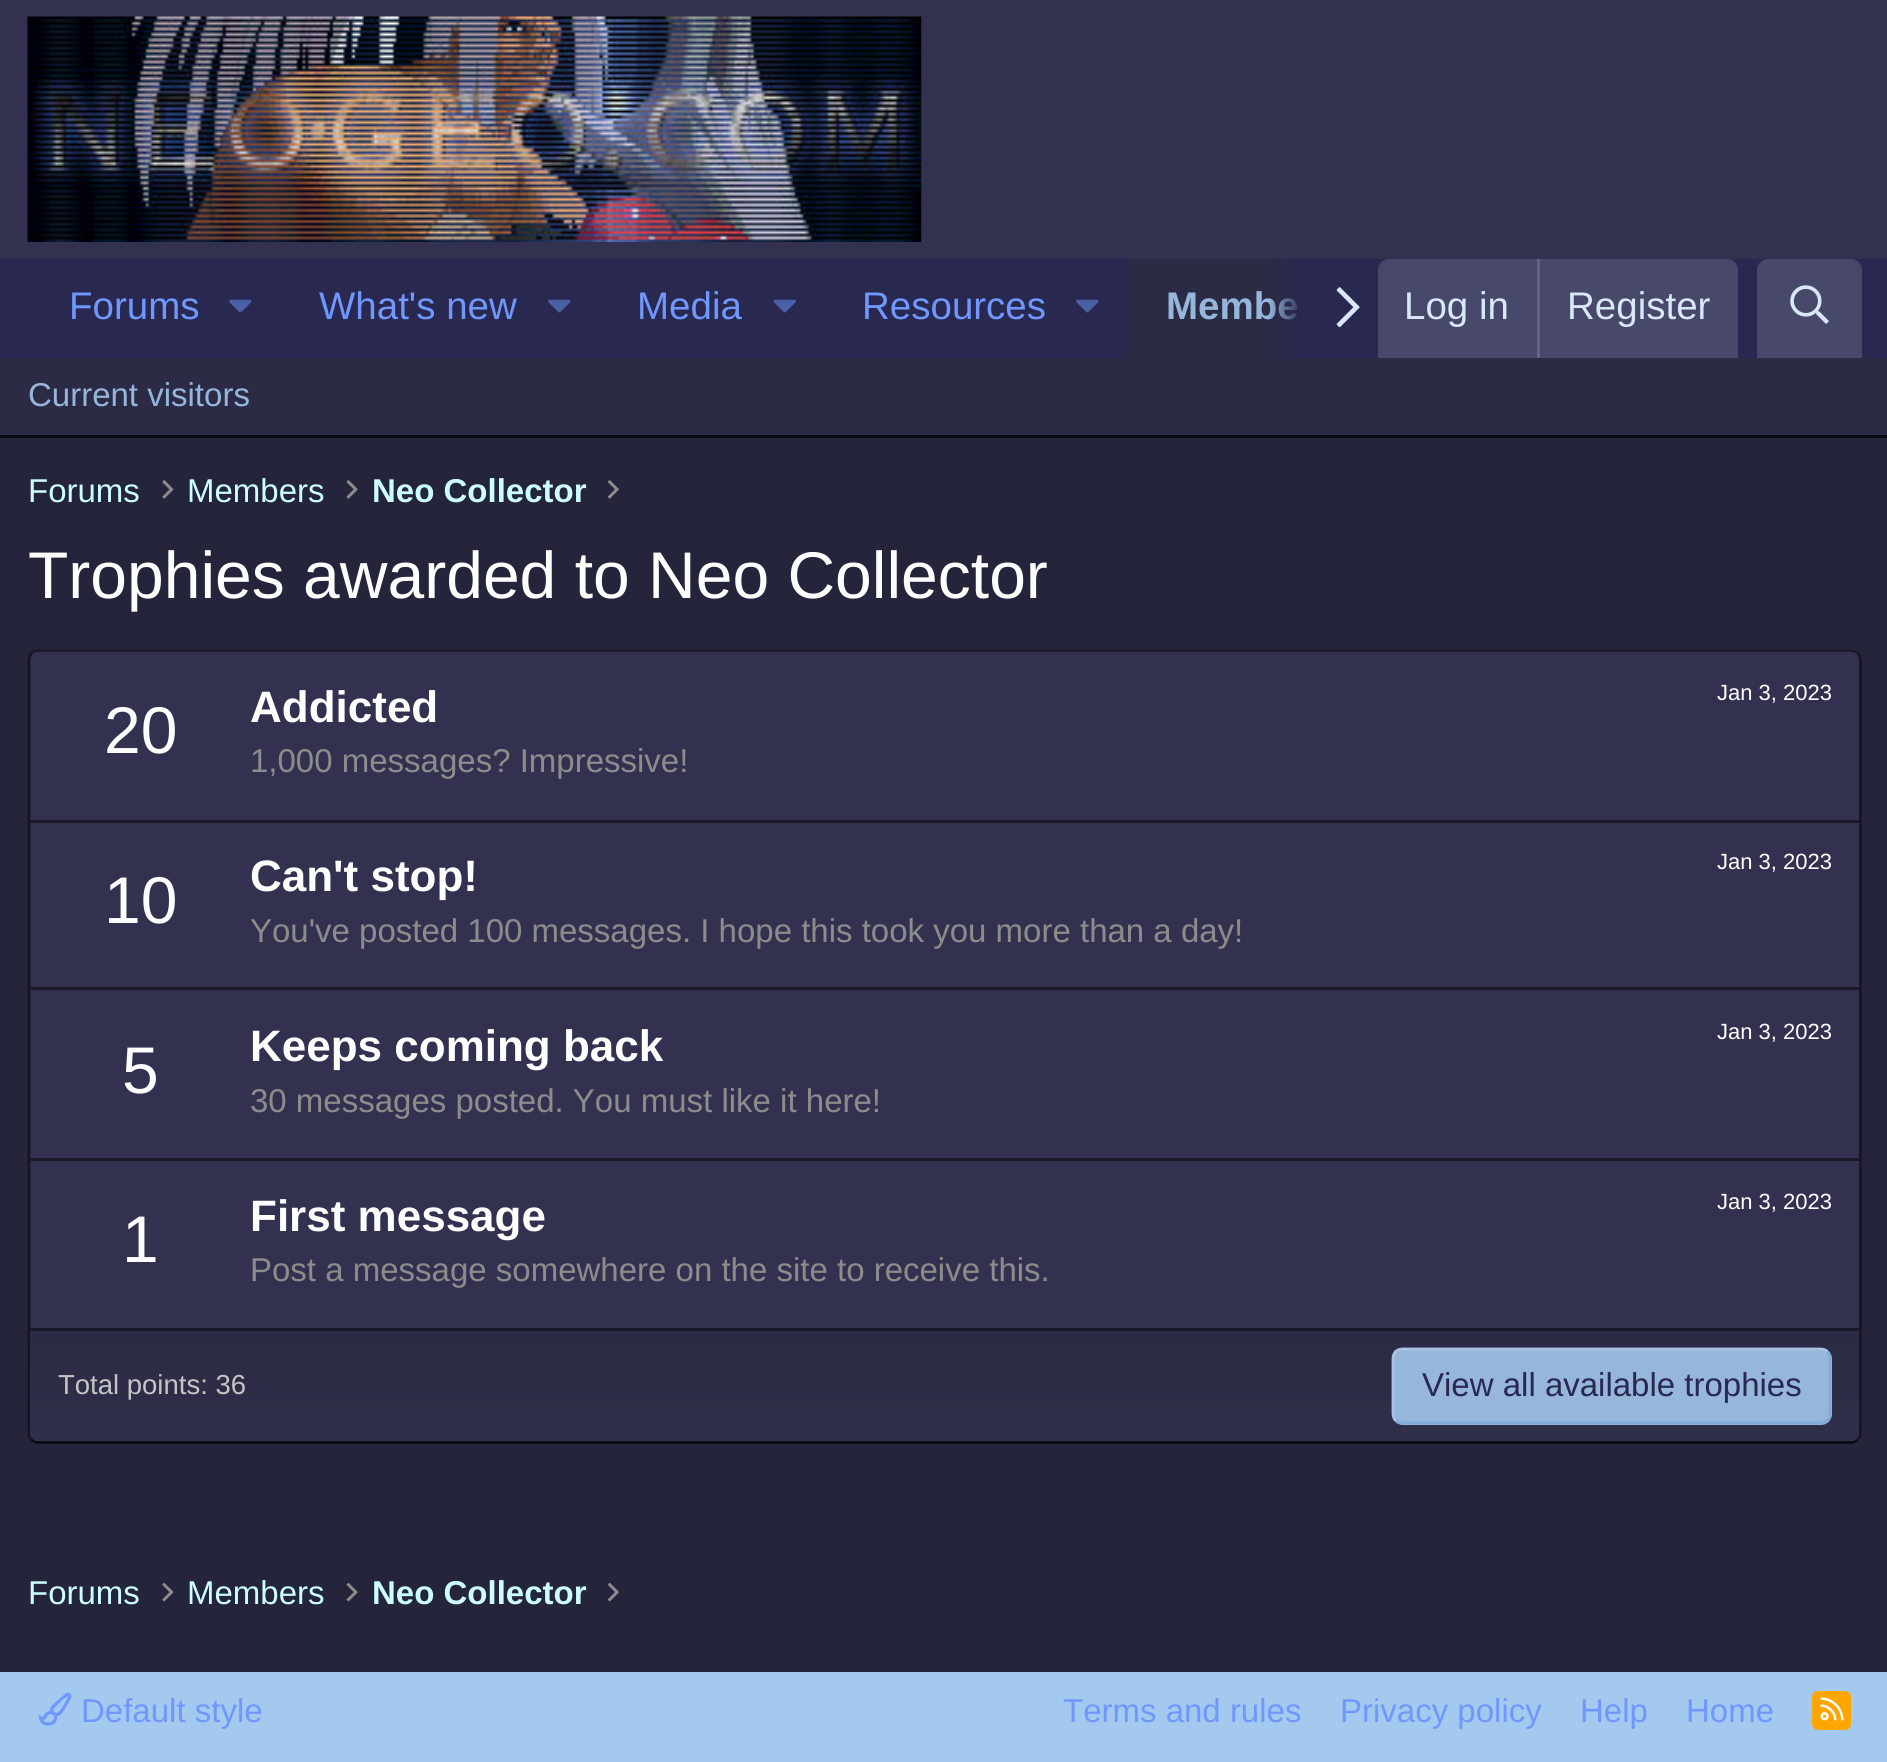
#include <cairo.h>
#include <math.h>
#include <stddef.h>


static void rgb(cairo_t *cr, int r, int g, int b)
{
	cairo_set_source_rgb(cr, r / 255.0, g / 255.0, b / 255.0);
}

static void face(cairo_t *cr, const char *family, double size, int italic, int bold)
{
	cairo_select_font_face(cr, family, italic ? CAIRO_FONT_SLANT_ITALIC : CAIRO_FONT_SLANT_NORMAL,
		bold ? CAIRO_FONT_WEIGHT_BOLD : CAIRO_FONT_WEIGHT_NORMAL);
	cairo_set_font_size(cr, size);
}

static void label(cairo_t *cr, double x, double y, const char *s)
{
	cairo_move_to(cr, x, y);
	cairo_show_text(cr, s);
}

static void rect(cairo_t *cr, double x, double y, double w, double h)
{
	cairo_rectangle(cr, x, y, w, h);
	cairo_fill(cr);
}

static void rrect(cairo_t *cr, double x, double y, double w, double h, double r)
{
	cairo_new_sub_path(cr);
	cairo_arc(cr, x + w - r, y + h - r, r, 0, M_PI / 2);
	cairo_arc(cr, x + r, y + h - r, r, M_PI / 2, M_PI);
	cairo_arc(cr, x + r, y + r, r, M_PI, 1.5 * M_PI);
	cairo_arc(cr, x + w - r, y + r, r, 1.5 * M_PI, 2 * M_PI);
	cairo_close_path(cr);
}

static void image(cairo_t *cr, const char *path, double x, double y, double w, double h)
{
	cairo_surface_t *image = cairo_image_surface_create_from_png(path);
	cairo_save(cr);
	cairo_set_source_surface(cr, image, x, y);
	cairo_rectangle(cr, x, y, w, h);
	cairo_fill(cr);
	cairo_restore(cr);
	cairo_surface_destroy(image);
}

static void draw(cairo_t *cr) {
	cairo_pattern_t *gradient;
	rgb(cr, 36, 36, 58);
	cairo_paint(cr);
	rgb(cr, 50, 50, 80);
	rect(cr, 0, 0, 1887, 259);
	image(cr, "image0.png", 27, 16, 895, 226);
	rgb(cr, 40, 40, 80);
	rect(cr, 0, 259, 1887, 99);
	face(cr, "Liberation Sans", 38.5, 0, 0);
	rgb(cr, 112, 151, 252);
	label(cr, 69, 319, "Forums");
	image(cr, "image1.png", 229, 299, 23, 14);
	label(cr, 319, 319, "What's new");
	image(cr, "image1.png", 548, 299, 23, 14);
	label(cr, 637, 319, "Media");
	image(cr, "image2.png", 773, 299, 23, 14);
	label(cr, 862, 319, "Resources");
	image(cr, "image1.png", 1076, 299, 23, 14);
	rgb(cr, 43, 43, 69);
	cairo_new_path(cr);
	cairo_move_to(cr, 1131, 259);
	cairo_line_to(cr, 1372, 259);
	cairo_curve_to(cr, 1375.5, 259, 1378, 261.5, 1378, 265);
	cairo_line_to(cr, 1378, 358);
	cairo_line_to(cr, 1125, 358);
	cairo_line_to(cr, 1125, 265);
	cairo_curve_to(cr, 1125, 261.5, 1127.5, 259, 1131, 259);
	cairo_close_path(cr);
	cairo_fill(cr);
	face(cr, "Liberation Sans", 38.5, 0, 1);
	rgb(cr, 150, 182, 220);
	label(cr, 1166, 319, "Membe");
	gradient = cairo_pattern_create_linear(1268, 308, 1378, 308);
	cairo_pattern_add_color_stop_rgba(gradient, 0, 0.157, 0.157, 0.314, 0);
	cairo_pattern_add_color_stop_rgba(gradient, 0.33, 0.157, 0.157, 0.314, 1);
	cairo_set_source(cr, gradient);
	cairo_pattern_destroy(gradient);
	rect(cr, 1269, 259, 109, 99);
	image(cr, "image3.png", 1336, 287, 24, 41);
	rgb(cr, 72, 72, 106);
	cairo_new_path(cr);
	cairo_move_to(cr, 1389, 259);
	cairo_line_to(cr, 1727, 259);
	cairo_curve_to(cr, 1733, 259, 1738, 264, 1738, 270);
	cairo_line_to(cr, 1738, 358);
	cairo_line_to(cr, 1378, 358);
	cairo_line_to(cr, 1378, 270);
	cairo_curve_to(cr, 1378, 264, 1383, 259, 1389, 259);
	cairo_close_path(cr);
	cairo_fill(cr);
	face(cr, "Liberation Sans", 38.5, 0, 0);
	rgb(cr, 216, 232, 248);
	label(cr, 1404, 319, "Log in");
	rgb(cr, 99, 99, 128);
	rect(cr, 1537, 259, 3, 99);
	rgb(cr, 216, 232, 248);
	label(cr, 1567, 319, "Register");
	rgb(cr, 72, 72, 106);
	cairo_new_path(cr);
	cairo_move_to(cr, 1768, 259);
	cairo_line_to(cr, 1851, 259);
	cairo_curve_to(cr, 1857, 259, 1862, 264, 1862, 270);
	cairo_line_to(cr, 1862, 358);
	cairo_line_to(cr, 1757, 358);
	cairo_line_to(cr, 1757, 270);
	cairo_curve_to(cr, 1757, 264, 1762, 259, 1768, 259);
	cairo_close_path(cr);
	cairo_fill(cr);
	image(cr, "image4.png", 1790, 285, 39, 39);
	rgb(cr, 43, 43, 69);
	rect(cr, 0, 358, 1887, 77);
	rgb(cr, 11, 11, 17);
	rect(cr, 0, 435, 1887, 3);
	face(cr, "Liberation Sans", 33, 0, 0);
	rgb(cr, 150, 182, 220);
	label(cr, 28, 406, "Current visitors");
	rgb(cr, 204, 253, 255);
	label(cr, 28, 502, "Forums");
	image(cr, "image5.png", 162, 480, 12, 19);
	label(cr, 187, 502, "Members");
	image(cr, "image6.png", 346, 480, 12, 19);
	face(cr, "Liberation Sans", 33, 0, 1);
	label(cr, 372, 502, "Neo Collector");
	image(cr, "image7.png", 607, 480, 12, 19);
	face(cr, "Liberation Sans", 66, 0, 0);
	rgb(cr, 254, 253, 253);
	label(cr, 28, 598, "Trophies awarded to Neo Collector");
	rgb(cr, 50, 50, 80);
	rrect(cr, 28, 649, 1834, 795, 11);
	cairo_fill(cr);
	cairo_new_path(cr);
	cairo_move_to(cr, 31.5, 653);
	cairo_curve_to(cr, 33.5, 651.5, 36, 650.5, 38.5, 650.5);
	cairo_line_to(cr, 1851, 650.5);
	cairo_curve_to(cr, 1853.5, 650.5, 1856, 651.5, 1857.5, 653);
	rgb(cr, 26, 26, 42);
	cairo_set_line_width(cr, 2.8);
	cairo_stroke(cr);
	cairo_new_path(cr);
	cairo_move_to(cr, 1857.5, 653);
	cairo_curve_to(cr, 1859.5, 655, 1860.5, 657.5, 1860.5, 660);
	cairo_line_to(cr, 1860.5, 1433);
	cairo_curve_to(cr, 1860.5, 1435.5, 1859.5, 1438, 1857.5, 1439.5);
	rgb(cr, 21, 21, 33);
	cairo_stroke(cr);
	cairo_new_path(cr);
	cairo_move_to(cr, 1857.5, 1439.5);
	cairo_curve_to(cr, 1856, 1441.5, 1853.5, 1442.5, 1851, 1442.5);
	cairo_line_to(cr, 38.5, 1442.5);
	cairo_curve_to(cr, 36, 1442.5, 33.5, 1441.5, 31.5, 1439.5);
	rgb(cr, 11, 11, 17);
	cairo_stroke(cr);
	cairo_new_path(cr);
	cairo_move_to(cr, 31.5, 1439.5);
	cairo_curve_to(cr, 30, 1438, 29, 1435.5, 29, 1433);
	cairo_line_to(cr, 29, 660);
	cairo_curve_to(cr, 29, 657.5, 30, 655, 31.5, 653);
	rgb(cr, 21, 21, 33);
	cairo_stroke(cr);
	rgb(cr, 254, 253, 253);
	label(cr, 104, 753, "20");
	face(cr, "Liberation Sans", 44, 0, 1);
	label(cr, 250, 722, "Addicted");
	face(cr, "Liberation Sans", 22, 0, 0);
	label(cr, 1717, 700, "Jan 3, 2023");
	face(cr, "Liberation Sans", 33, 0, 0);
	rgb(cr, 140, 140, 140);
	label(cr, 250, 772, "1,000 messages? Impressive!");
	rgb(cr, 26, 26, 42);
	rect(cr, 30, 820, 1829, 3);
	face(cr, "Liberation Sans", 66, 0, 0);
	rgb(cr, 254, 253, 253);
	label(cr, 104, 923, "10");
	face(cr, "Liberation Sans", 44, 0, 1);
	label(cr, 250, 891, "Can't stop!");
	face(cr, "Liberation Sans", 22, 0, 0);
	label(cr, 1717, 869, "Jan 3, 2023");
	face(cr, "Liberation Sans", 33, 0, 0);
	rgb(cr, 140, 140, 140);
	label(cr, 250, 942, "You've posted 100 messages. I hope this took you more than a day!");
	rgb(cr, 26, 26, 42);
	rect(cr, 30, 987, 1829, 3);
	face(cr, "Liberation Sans", 66, 0, 0);
	rgb(cr, 254, 253, 253);
	label(cr, 122, 1093, "5");
	face(cr, "Liberation Sans", 44, 0, 1);
	label(cr, 250, 1061, "Keeps coming back");
	face(cr, "Liberation Sans", 22, 0, 0);
	label(cr, 1717, 1039, "Jan 3, 2023");
	face(cr, "Liberation Sans", 33, 0, 0);
	rgb(cr, 140, 140, 140);
	label(cr, 250, 1112, "30 messages posted. You must like it here!");
	rgb(cr, 26, 26, 42);
	rect(cr, 30, 1158, 1829, 3);
	face(cr, "Liberation Sans", 66, 0, 0);
	rgb(cr, 254, 253, 253);
	label(cr, 122, 1262, "1");
	face(cr, "Liberation Sans", 44, 0, 1);
	label(cr, 250, 1231, "First message");
	face(cr, "Liberation Sans", 22, 0, 0);
	label(cr, 1717, 1209, "Jan 3, 2023");
	face(cr, "Liberation Sans", 33, 0, 0);
	rgb(cr, 140, 140, 140);
	label(cr, 250, 1281, "Post a message somewhere on the site to receive this.");
	gradient = cairo_pattern_create_linear(945, 1331, 945, 1441);
	cairo_pattern_add_color_stop_rgba(gradient, 0, 0.169, 0.169, 0.271, 1);
	cairo_pattern_add_color_stop_rgba(gradient, 1, 0.184, 0.184, 0.294, 1);
	cairo_set_source(cr, gradient);
	cairo_pattern_destroy(gradient);
	cairo_new_path(cr);
	cairo_move_to(cr, 30, 1331);
	cairo_line_to(cr, 1859, 1331);
	cairo_line_to(cr, 1859, 1433);
	cairo_curve_to(cr, 1859, 1437.5, 1855.5, 1441, 1851, 1441);
	cairo_line_to(cr, 38, 1441);
	cairo_curve_to(cr, 33.5, 1441, 30, 1437.5, 30, 1433);
	cairo_close_path(cr);
	cairo_fill(cr);
	rgb(cr, 26, 26, 42);
	rect(cr, 30, 1328, 1829, 3);
	face(cr, "Liberation Sans", 27.5, 0, 0);
	rgb(cr, 197, 197, 197);
	label(cr, 58, 1394, "Total points: 36");
	rgb(cr, 150, 182, 220);
	rrect(cr, 1392, 1348, 440, 77, 11);
	cairo_fill(cr);
	cairo_new_path(cr);
	cairo_move_to(cr, 1827.5, 1351.5);
	cairo_curve_to(cr, 1829, 1353.5, 1830, 1356, 1830, 1358.5);
	cairo_line_to(cr, 1830, 1413.5);
	cairo_curve_to(cr, 1830, 1416, 1829, 1418.5, 1827.5, 1420.5);
	cairo_curve_to(cr, 1825.5, 1422, 1823, 1423, 1820.5, 1423);
	cairo_line_to(cr, 1402.5, 1423);
	cairo_curve_to(cr, 1400, 1423, 1397.5, 1422, 1395.5, 1420.5);
	rgb(cr, 131, 169, 214);
	cairo_stroke(cr);
	cairo_new_path(cr);
	cairo_move_to(cr, 1395.5, 1420.5);
	cairo_curve_to(cr, 1394, 1418.5, 1393, 1416, 1393, 1413.5);
	cairo_line_to(cr, 1393, 1358.5);
	cairo_curve_to(cr, 1393, 1356, 1394, 1353.5, 1395.5, 1351.5);
	cairo_curve_to(cr, 1397.5, 1350, 1400, 1349, 1402.5, 1349);
	cairo_line_to(cr, 1820.5, 1349);
	cairo_curve_to(cr, 1823, 1349, 1825.5, 1350, 1827.5, 1351.5);
	rgb(cr, 169, 195, 226);
	cairo_stroke(cr);
	face(cr, "Liberation Sans", 33, 0, 0);
	rgb(cr, 40, 40, 80);
	label(cr, 1422, 1396, "View all available trophies");
	rgb(cr, 204, 253, 255);
	label(cr, 28, 1604, "Forums");
	image(cr, "image8.png", 162, 1582, 12, 20);
	label(cr, 187, 1604, "Members");
	image(cr, "image9.png", 346, 1582, 12, 20);
	face(cr, "Liberation Sans", 33, 0, 1);
	label(cr, 372, 1604, "Neo Collector");
	image(cr, "image10.png", 607, 1582, 12, 20);
	rgb(cr, 164, 201, 239);
	rect(cr, 0, 1672, 1887, 90);
	image(cr, "image11.png", 38, 1692, 34, 34);
	face(cr, "Liberation Sans", 33, 0, 0);
	rgb(cr, 112, 151, 252);
	label(cr, 81, 1722, "Default style");
	label(cr, 1063, 1722, "Terms and rules");
	label(cr, 1340, 1722, "Privacy policy");
	label(cr, 1580, 1722, "Help");
	label(cr, 1686, 1722, "Home");
	rgb(cr, 255, 165, 0);
	rrect(cr, 1812, 1691, 39, 39, 6);
	cairo_fill(cr);
	image(cr, "image12.png", 1820, 1697, 24, 24);
}

int main(void) {
	cairo_surface_t *surface = cairo_image_surface_create(CAIRO_FORMAT_RGB24, 1887, 1762);
	cairo_t *cr = cairo_create(surface);
	cairo_font_options_t *options = cairo_font_options_create();
	cairo_font_options_set_hint_metrics(options, CAIRO_HINT_METRICS_OFF);
	cairo_font_options_set_hint_style(options, CAIRO_HINT_STYLE_NONE);
	cairo_set_font_options(cr, options);
	cairo_set_miter_limit(cr, 4);
	draw(cr);
	cairo_surface_write_to_png(surface, "render.png");
	cairo_font_options_destroy(options);
	cairo_destroy(cr);
	cairo_surface_destroy(surface);
	return 0;
}
